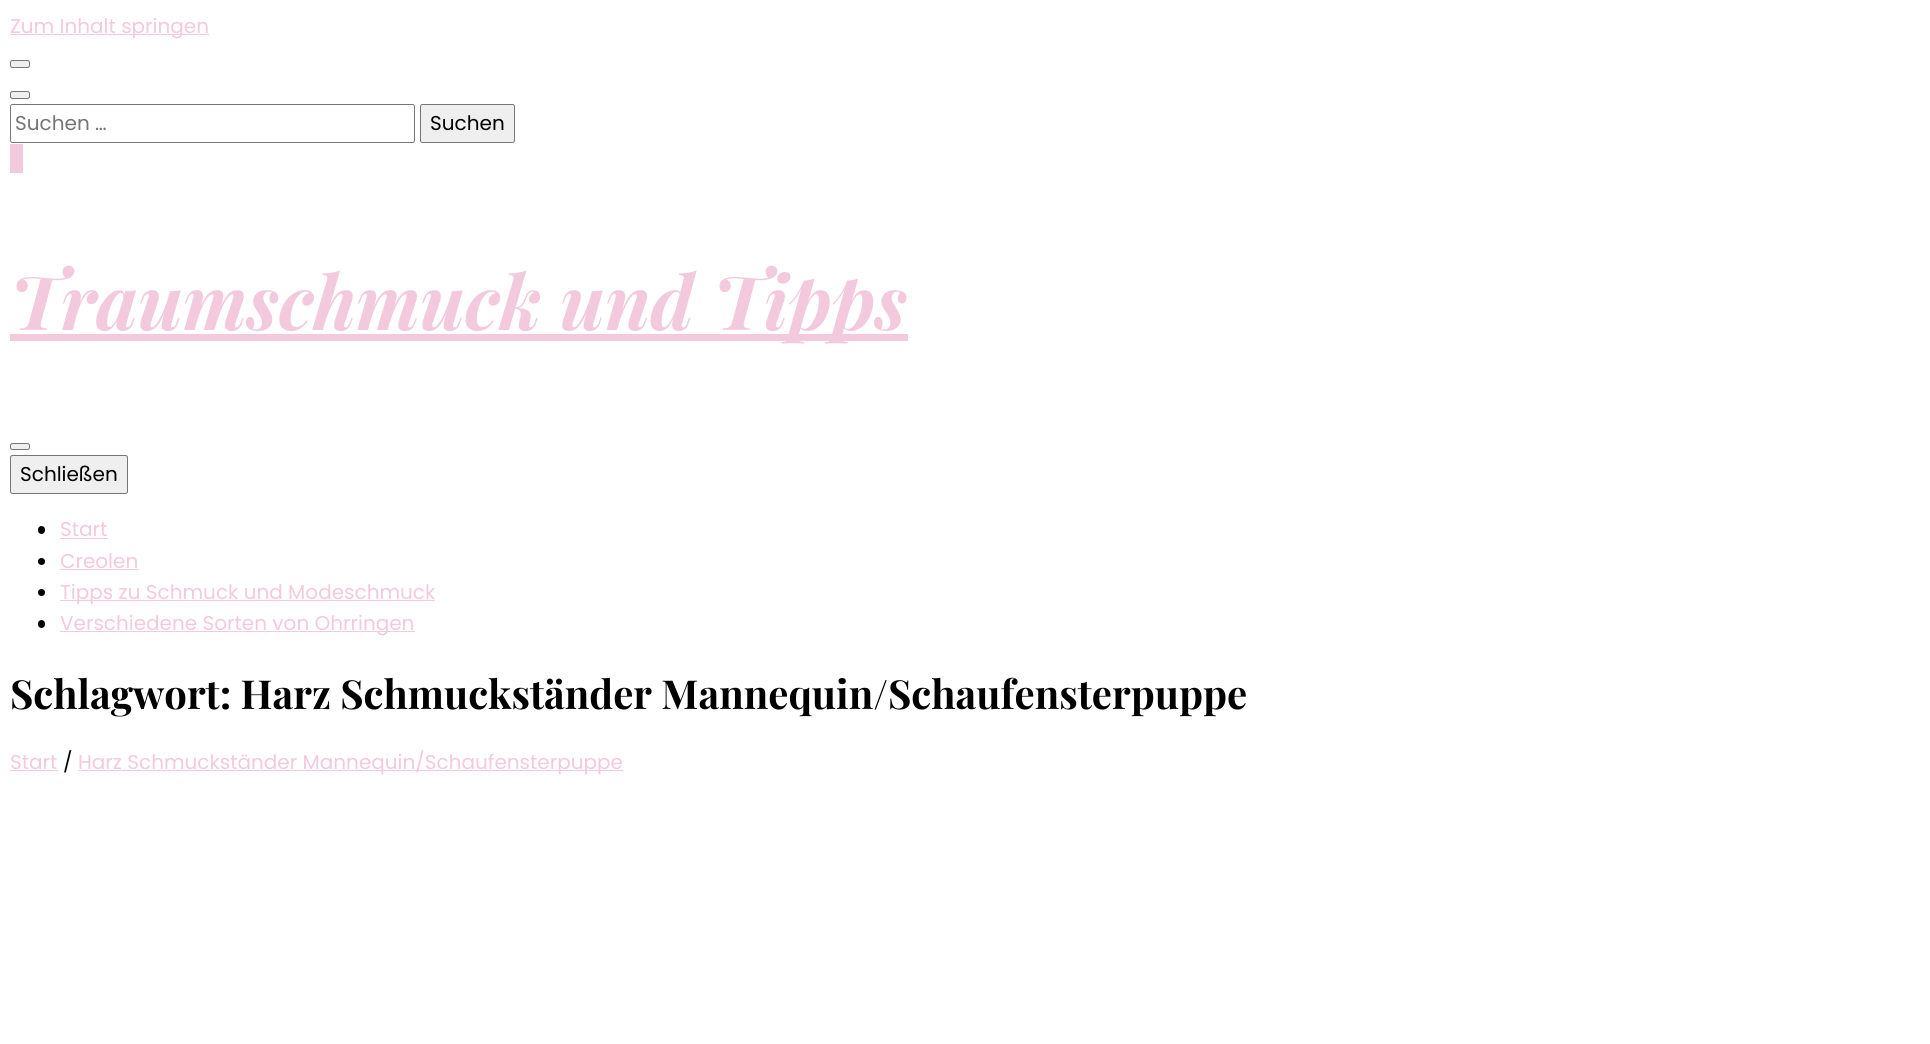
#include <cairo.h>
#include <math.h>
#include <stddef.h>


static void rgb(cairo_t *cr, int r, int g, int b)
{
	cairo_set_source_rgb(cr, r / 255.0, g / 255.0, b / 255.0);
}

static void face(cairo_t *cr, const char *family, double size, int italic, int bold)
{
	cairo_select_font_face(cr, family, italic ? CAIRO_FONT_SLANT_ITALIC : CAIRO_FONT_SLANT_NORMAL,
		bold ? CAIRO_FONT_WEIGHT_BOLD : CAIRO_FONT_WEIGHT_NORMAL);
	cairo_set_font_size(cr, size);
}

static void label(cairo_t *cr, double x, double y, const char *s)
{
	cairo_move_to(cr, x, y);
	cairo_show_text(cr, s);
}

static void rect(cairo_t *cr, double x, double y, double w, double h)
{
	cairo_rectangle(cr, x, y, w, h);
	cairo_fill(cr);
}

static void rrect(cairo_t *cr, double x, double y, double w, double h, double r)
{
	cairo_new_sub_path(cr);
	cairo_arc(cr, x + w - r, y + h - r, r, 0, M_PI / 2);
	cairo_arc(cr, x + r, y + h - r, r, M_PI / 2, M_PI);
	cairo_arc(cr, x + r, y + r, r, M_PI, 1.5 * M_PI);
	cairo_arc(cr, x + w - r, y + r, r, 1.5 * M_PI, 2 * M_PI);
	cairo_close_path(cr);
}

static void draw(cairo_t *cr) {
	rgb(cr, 255, 255, 255);
	cairo_paint(cr);
	rgb(cr, 243, 201, 221);
	rect(cr, 10, 34, 199, 1);
	face(cr, "Poppins", 20, 0, 0);
	label(cr, 10, 33, "Zum Inhalt springen");
	rgb(cr, 239, 239, 239);
	rrect(cr, 10.5, 60.5, 19, 7, 2);
	cairo_fill_preserve(cr);
	rgb(cr, 118, 118, 118);
	cairo_set_line_width(cr, 1);
	cairo_stroke(cr);
	rgb(cr, 239, 239, 239);
	rrect(cr, 10.5, 91.5, 19, 7, 2);
	cairo_fill_preserve(cr);
	rgb(cr, 118, 118, 118);
	cairo_stroke(cr);
	rrect(cr, 10.5, 104.5, 404, 38, 2);
	cairo_stroke(cr);
	rgb(cr, 117, 117, 117);
	label(cr, 15, 130, "Suchen …");
	rgb(cr, 239, 239, 239);
	rrect(cr, 420.5, 104.5, 94, 38, 2);
	cairo_fill_preserve(cr);
	rgb(cr, 118, 118, 118);
	cairo_stroke(cr);
	rgb(cr, 0, 0, 0);
	label(cr, 430, 130, "Suchen");
	rgb(cr, 243, 201, 221);
	rect(cr, 10, 144, 13, 29);
	rect(cr, 10, 334, 898, 7);
	face(cr, "Playfair Display", 75, 1, 1);
	label(cr, 10, 330, "Traumschmuck und Tipps");
	rgb(cr, 239, 239, 239);
	rrect(cr, 10.5, 443.5, 19, 6, 2);
	cairo_fill_preserve(cr);
	rgb(cr, 118, 118, 118);
	cairo_stroke(cr);
	rgb(cr, 239, 239, 239);
	rrect(cr, 10.5, 455.5, 117, 38, 2);
	cairo_fill_preserve(cr);
	rgb(cr, 118, 118, 118);
	cairo_stroke(cr);
	face(cr, "Poppins", 20, 0, 0);
	rgb(cr, 0, 0, 0);
	label(cr, 20, 481, "Schließen");
	rrect(cr, 38, 526, 7, 8, 3.5);
	cairo_fill(cr);
	rgb(cr, 243, 201, 221);
	label(cr, 60, 536, "Start");
	rect(cr, 60, 538, 48, 1);
	rgb(cr, 0, 0, 0);
	cairo_new_path(cr);
	cairo_arc(cr, 41.5, 561.5, 3.5, 0, 2 * M_PI);
	cairo_fill(cr);
	rgb(cr, 243, 201, 221);
	label(cr, 60, 568, "Creolen");
	rect(cr, 60, 569, 79, 1);
	rgb(cr, 0, 0, 0);
	cairo_new_path(cr);
	cairo_arc(cr, 41.5, 592.5, 3.5, 0, 2 * M_PI);
	cairo_fill(cr);
	rgb(cr, 243, 201, 221);
	rect(cr, 60, 600, 375, 1);
	label(cr, 60, 599, "Tipps zu Schmuck und Modeschmuck");
	rgb(cr, 0, 0, 0);
	rrect(cr, 38, 620, 7, 8, 3.5);
	cairo_fill(cr);
	rgb(cr, 243, 201, 221);
	rect(cr, 60, 631, 355, 1);
	label(cr, 60, 630, "Verschiedene Sorten von Ohrringen");
	face(cr, "Playfair Display", 40, 0, 1);
	rgb(cr, 0, 0, 0);
	label(cr, 10, 709, "Schlagwort: Harz Schmuckständer Mannequin/Schaufensterpuppe");
	face(cr, "Poppins", 20, 0, 0);
	rgb(cr, 243, 201, 221);
	label(cr, 10, 769, "Start");
	rect(cr, 10, 770, 48, 1);
	rgb(cr, 0, 0, 0);
	label(cr, 63, 769, "/");
	rgb(cr, 243, 201, 221);
	rect(cr, 78, 770, 545, 1);
	label(cr, 78, 769, "Harz Schmuckständer Mannequin/Schaufensterpuppe");
}

int main(void) {
	cairo_surface_t *surface = cairo_image_surface_create(CAIRO_FORMAT_RGB24, 1930, 1044);
	cairo_t *cr = cairo_create(surface);
	cairo_font_options_t *options = cairo_font_options_create();
	cairo_font_options_set_hint_metrics(options, CAIRO_HINT_METRICS_OFF);
	cairo_font_options_set_hint_style(options, CAIRO_HINT_STYLE_NONE);
	cairo_set_font_options(cr, options);
	cairo_set_miter_limit(cr, 4);
	draw(cr);
	cairo_surface_write_to_png(surface, "render.png");
	cairo_font_options_destroy(options);
	cairo_destroy(cr);
	cairo_surface_destroy(surface);
	return 0;
}
